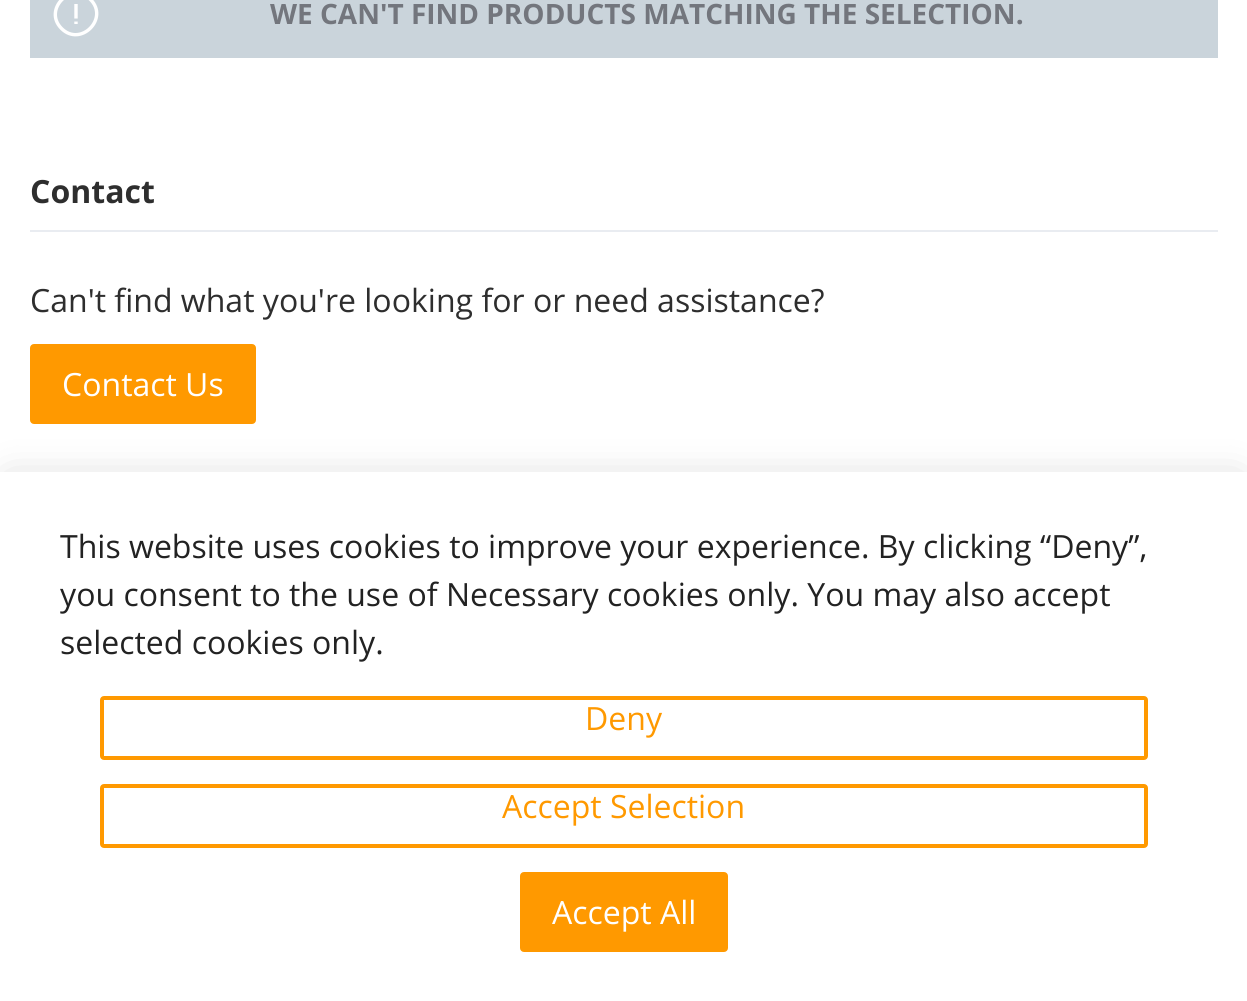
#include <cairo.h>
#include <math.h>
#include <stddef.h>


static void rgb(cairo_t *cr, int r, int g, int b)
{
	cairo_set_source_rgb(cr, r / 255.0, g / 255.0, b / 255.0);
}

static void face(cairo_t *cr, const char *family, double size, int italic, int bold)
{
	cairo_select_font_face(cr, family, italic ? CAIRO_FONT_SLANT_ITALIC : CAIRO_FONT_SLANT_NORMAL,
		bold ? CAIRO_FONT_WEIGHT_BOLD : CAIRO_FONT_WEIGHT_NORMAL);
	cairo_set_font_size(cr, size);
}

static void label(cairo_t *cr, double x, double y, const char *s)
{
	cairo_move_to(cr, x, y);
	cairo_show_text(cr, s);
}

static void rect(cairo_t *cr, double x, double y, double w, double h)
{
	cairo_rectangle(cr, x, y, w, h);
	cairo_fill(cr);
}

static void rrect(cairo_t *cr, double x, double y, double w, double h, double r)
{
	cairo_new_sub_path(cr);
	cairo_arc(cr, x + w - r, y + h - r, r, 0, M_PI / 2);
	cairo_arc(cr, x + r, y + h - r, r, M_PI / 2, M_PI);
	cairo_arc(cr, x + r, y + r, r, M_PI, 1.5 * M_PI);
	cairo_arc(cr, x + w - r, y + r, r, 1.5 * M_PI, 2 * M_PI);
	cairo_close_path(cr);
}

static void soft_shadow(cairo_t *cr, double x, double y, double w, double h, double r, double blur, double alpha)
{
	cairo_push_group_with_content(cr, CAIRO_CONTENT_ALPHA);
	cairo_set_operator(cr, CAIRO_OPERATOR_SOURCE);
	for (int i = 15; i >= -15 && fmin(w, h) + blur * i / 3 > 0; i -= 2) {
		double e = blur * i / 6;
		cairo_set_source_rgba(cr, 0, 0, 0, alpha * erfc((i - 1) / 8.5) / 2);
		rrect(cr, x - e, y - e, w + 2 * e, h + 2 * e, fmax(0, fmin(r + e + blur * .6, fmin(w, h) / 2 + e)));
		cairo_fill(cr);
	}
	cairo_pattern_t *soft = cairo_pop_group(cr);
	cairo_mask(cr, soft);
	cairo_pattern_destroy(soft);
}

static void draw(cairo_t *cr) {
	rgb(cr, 255, 255, 255);
	cairo_paint(cr);
	rgb(cr, 202, 212, 219);
	rect(cr, 30, 0, 1188, 58);
	cairo_new_path(cr);
	cairo_move_to(cr, 90.5, -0.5);
	cairo_curve_to(cr, 109.5, 18.5, 80.5, 47.5, 61.5, 28.5);
	cairo_curve_to(cr, 42.5, 9.5, 71.5, -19.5, 90.5, -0.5);
	cairo_close_path(cr);
	cairo_move_to(cr, 76, 4);
	cairo_line_to(cr, 76, 18.5);
	cairo_move_to(cr, 76, 21.5);
	cairo_line_to(cr, 76, 24);
	rgb(cr, 255, 255, 255);
	cairo_set_line_width(cr, 3.4);
	cairo_stroke(cr);
	face(cr, "Open Sans", 28, 0, 1);
	rgb(cr, 115, 118, 125);
	label(cr, 270, 24, "WE CAN'T FIND PRODUCTS MATCHING THE SELECTION.");
	rgb(cr, 233, 236, 241);
	rect(cr, 30, 230, 1188, 2);
	face(cr, "Open Sans", 32, 0, 1);
	rgb(cr, 46, 46, 46);
	label(cr, 30, 203, "Contact");
	face(cr, "Open Sans", 32, 0, 0);
	label(cr, 30, 312, "Can't find what you're looking for or need assistance?");
	rgb(cr, 255, 153, 0);
	rrect(cr, 31, 345, 224, 78, 3);
	cairo_fill_preserve(cr);
	cairo_set_line_width(cr, 2);
	cairo_stroke(cr);
	rgb(cr, 255, 255, 255);
	label(cr, 62, 396, "Contact Us");
	rgb(cr, 0, 0, 0);
	soft_shadow(cr, 10, 482, 1228, 510, 0, 20, 0.2);
	rgb(cr, 255, 255, 255);
	rect(cr, 0, 472, 1247, 529);
	rgb(cr, 34, 34, 34);
	label(cr, 60, 558, "This website uses cookies to improve your experience. By clicking “Deny”,");
	label(cr, 60, 606, "you consent to the use of Necessary cookies only. You may also accept");
	label(cr, 60, 654, "selected cookies only.");
	rrect(cr, 102, 698, 1044, 60, 2);
	rgb(cr, 255, 153, 0);
	cairo_set_line_width(cr, 4);
	cairo_stroke(cr);
	label(cr, 585, 730, "Deny");
	rrect(cr, 102, 786, 1044, 60, 2);
	cairo_stroke(cr);
	label(cr, 502, 818, "Accept Selection");
	rrect(cr, 521, 873, 206, 78, 3);
	cairo_fill_preserve(cr);
	cairo_set_line_width(cr, 2);
	cairo_stroke(cr);
	rgb(cr, 255, 255, 255);
	label(cr, 552, 924, "Accept All");
}

int main(void) {
	cairo_surface_t *surface = cairo_image_surface_create(CAIRO_FORMAT_RGB24, 1247, 1001);
	cairo_t *cr = cairo_create(surface);
	cairo_font_options_t *options = cairo_font_options_create();
	cairo_font_options_set_hint_metrics(options, CAIRO_HINT_METRICS_OFF);
	cairo_font_options_set_hint_style(options, CAIRO_HINT_STYLE_NONE);
	cairo_set_font_options(cr, options);
	cairo_set_miter_limit(cr, 4);
	draw(cr);
	cairo_surface_write_to_png(surface, "render.png");
	cairo_font_options_destroy(options);
	cairo_destroy(cr);
	cairo_surface_destroy(surface);
	return 0;
}
